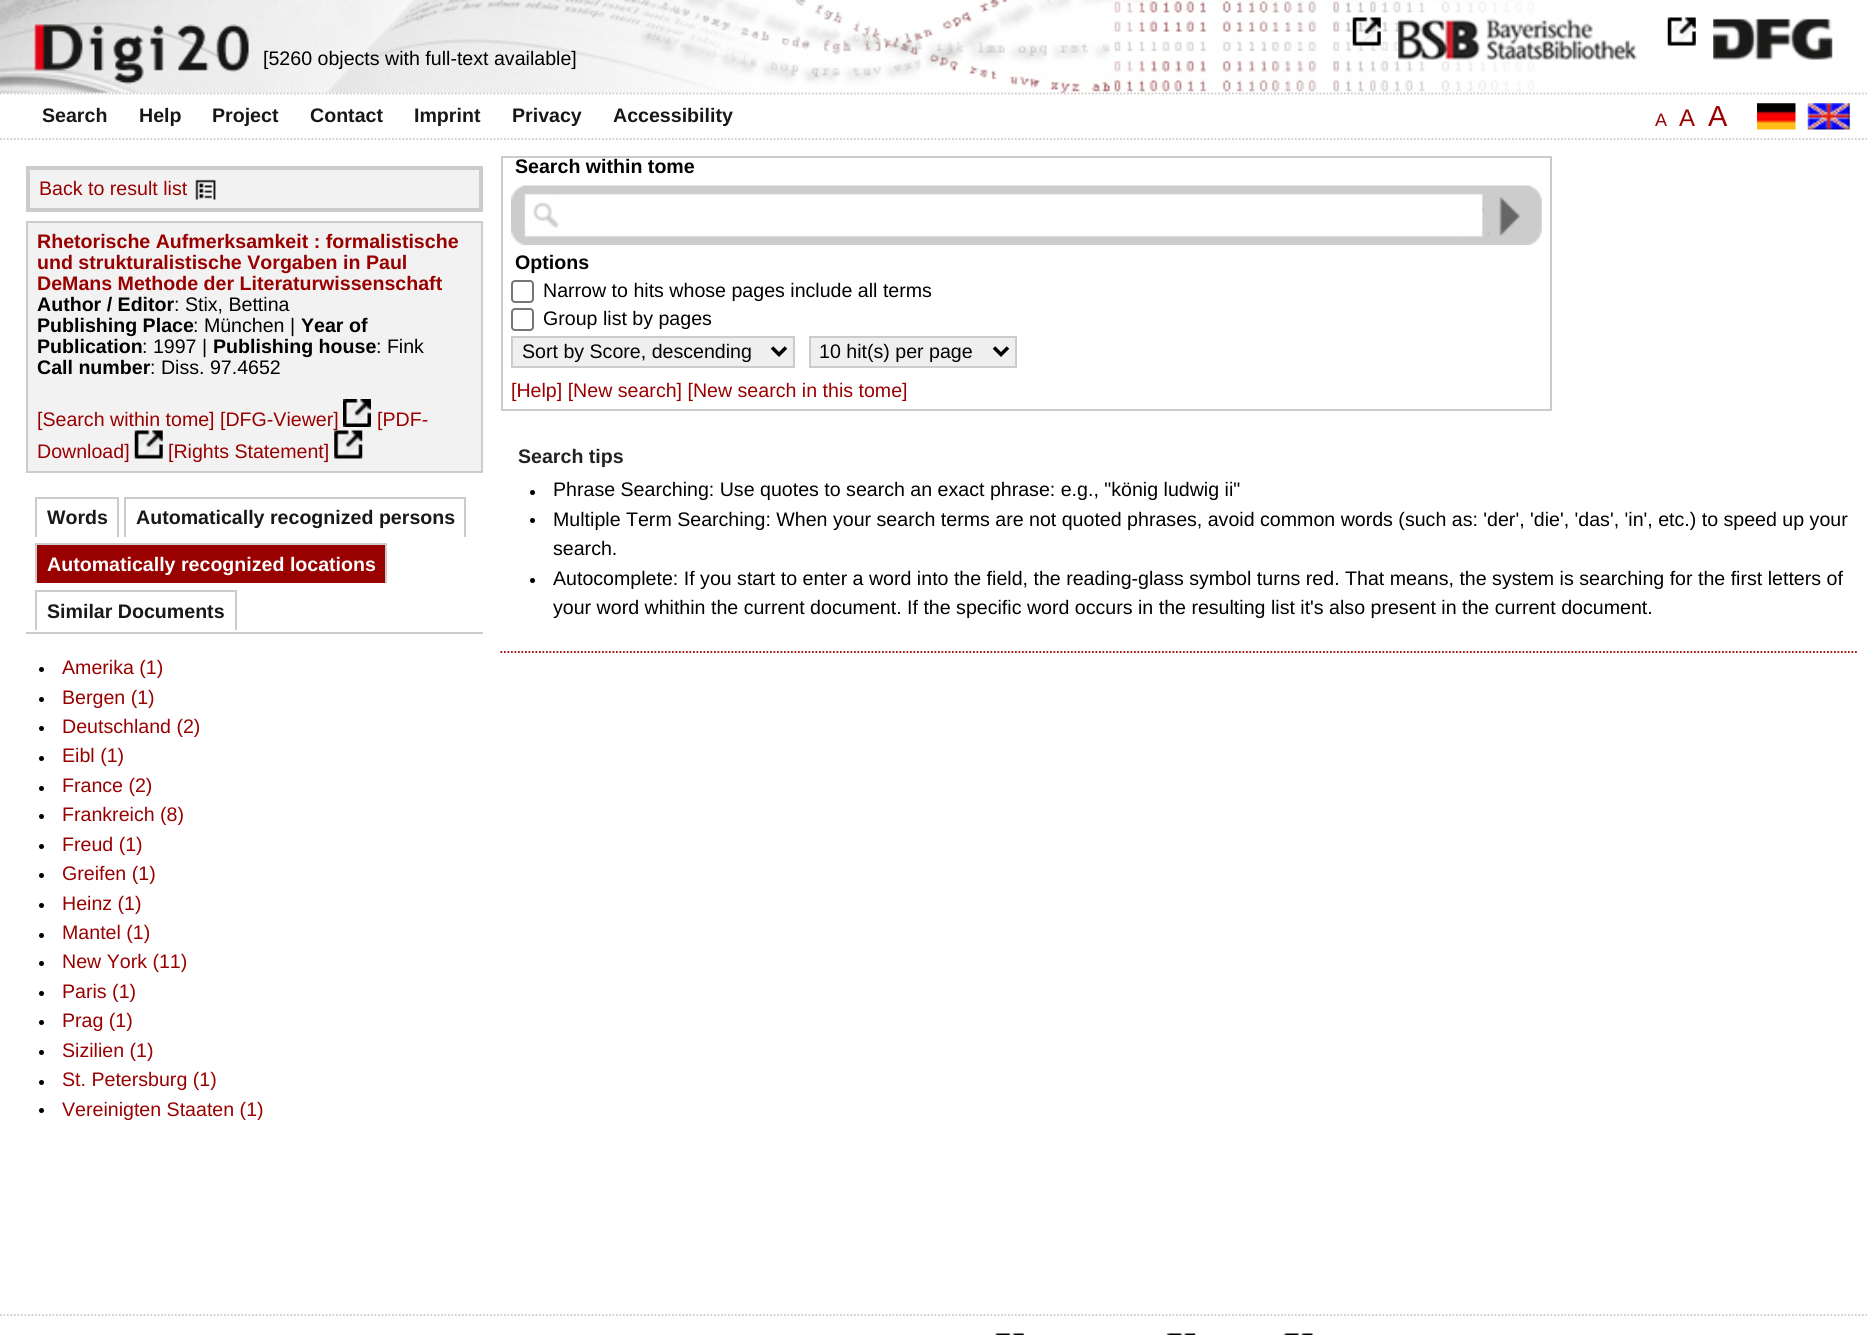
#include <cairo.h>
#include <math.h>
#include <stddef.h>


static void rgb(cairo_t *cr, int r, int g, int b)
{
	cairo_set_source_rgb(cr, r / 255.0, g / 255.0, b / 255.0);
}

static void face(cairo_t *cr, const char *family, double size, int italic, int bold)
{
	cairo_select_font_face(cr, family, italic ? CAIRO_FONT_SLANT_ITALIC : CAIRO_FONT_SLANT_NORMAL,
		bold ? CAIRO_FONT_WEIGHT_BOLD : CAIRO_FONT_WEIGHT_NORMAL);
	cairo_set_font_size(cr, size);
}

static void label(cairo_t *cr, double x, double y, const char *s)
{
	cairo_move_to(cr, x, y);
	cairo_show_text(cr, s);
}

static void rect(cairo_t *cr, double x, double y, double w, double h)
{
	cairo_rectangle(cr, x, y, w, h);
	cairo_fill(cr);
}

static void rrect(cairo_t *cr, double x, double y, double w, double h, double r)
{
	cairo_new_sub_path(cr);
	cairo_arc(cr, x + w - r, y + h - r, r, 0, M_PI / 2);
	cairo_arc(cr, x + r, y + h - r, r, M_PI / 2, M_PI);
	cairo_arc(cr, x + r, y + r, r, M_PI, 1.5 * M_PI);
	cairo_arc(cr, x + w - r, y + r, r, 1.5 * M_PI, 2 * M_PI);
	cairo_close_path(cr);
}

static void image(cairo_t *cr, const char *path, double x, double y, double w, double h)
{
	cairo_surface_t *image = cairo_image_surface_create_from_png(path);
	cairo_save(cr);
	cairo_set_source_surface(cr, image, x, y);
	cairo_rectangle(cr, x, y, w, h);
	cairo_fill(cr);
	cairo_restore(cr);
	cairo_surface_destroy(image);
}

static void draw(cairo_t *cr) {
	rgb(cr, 255, 255, 255);
	cairo_paint(cr);
	image(cr, "image0.png", 0, 0, 1535, 93);
	face(cr, "Liberation Sans", 19.6, 0, 0);
	rgb(cr, 0, 0, 0);
	label(cr, 263, 65, "[5260 objects with full-text available]");
	image(cr, "image1.png", 1398, 17, 239, 43);
	image(cr, "image2.png", 1352, 17, 29, 29);
	image(cr, "image3.png", 1713, 18, 120, 42);
	image(cr, "image4.png", 1667, 17, 29, 29);
	cairo_new_path(cr);
	cairo_move_to(cr, 0, 93.5);
	cairo_line_to(cr, 1867, 93.5);
	rgb(cr, 204, 204, 204);
	cairo_set_line_width(cr, 1.8);
	cairo_set_dash(cr, (double[]){1.75, 1.75}, 2, 0);
	cairo_stroke(cr);
	cairo_new_path(cr);
	cairo_move_to(cr, 0, 139);
	cairo_line_to(cr, 1867, 139);
	cairo_stroke(cr);
	face(cr, "Liberation Sans", 19.6, 0, 1);
	rgb(cr, 24, 24, 24);
	label(cr, 42, 122, "Search");
	label(cr, 139, 122, "Help");
	label(cr, 212, 122, "Project");
	label(cr, 310, 122, "Contact");
	label(cr, 414, 122, "Imprint");
	label(cr, 512, 122, "Privacy");
	label(cr, 613, 122, "Accessibility");
	face(cr, "Liberation Sans", 18, 0, 0);
	rgb(cr, 153, 0, 0);
	label(cr, 1655, 126, "A");
	face(cr, "Liberation Sans", 24, 0, 0);
	label(cr, 1679, 126, "A");
	face(cr, "Liberation Sans", 29, 0, 0);
	label(cr, 1708, 126, "A");
	image(cr, "image5.png", 1757, 103, 39, 27);
	image(cr, "image6.png", 1807, 103, 43, 27);
	rgb(cr, 242, 242, 242);
	cairo_rectangle(cr, 28, 168, 453, 42);
	cairo_fill_preserve(cr);
	rgb(cr, 204, 204, 204);
	cairo_set_line_width(cr, 4);
	cairo_set_dash(cr, NULL, 0, 0);
	cairo_stroke(cr);
	face(cr, "Liberation Sans", 19.6, 0, 0);
	rgb(cr, 153, 0, 0);
	label(cr, 39, 195, "Back to result list");
	image(cr, "image7.png", 195, 179, 21, 21);
	rgb(cr, 242, 242, 242);
	cairo_rectangle(cr, 27, 222, 455, 250);
	cairo_fill_preserve(cr);
	rgb(cr, 204, 204, 204);
	cairo_set_line_width(cr, 2);
	cairo_stroke(cr);
	face(cr, "Liberation Sans", 19.6, 0, 1);
	rgb(cr, 153, 0, 0);
	label(cr, 37, 248, "Rhetorische Aufmerksamkeit : formalistische");
	label(cr, 37, 269, "und strukturalistische Vorgaben in Paul");
	label(cr, 37, 290, "DeMans Methode der Literaturwissenschaft");
	rgb(cr, 0, 0, 0);
	label(cr, 37, 311, "Author / Editor");
	face(cr, "Liberation Sans", 19.6, 0, 0);
	label(cr, 174, 311, ": Stix, Bettina");
	face(cr, "Liberation Sans", 19.6, 0, 1);
	label(cr, 37, 332, "Publishing Place");
	face(cr, "Liberation Sans", 19.6, 0, 0);
	label(cr, 193, 332, ": München |");
	face(cr, "Liberation Sans", 19.6, 0, 1);
	label(cr, 301, 332, "Year of");
	label(cr, 37, 353, "Publication");
	face(cr, "Liberation Sans", 19.6, 0, 0);
	label(cr, 142, 353, ": 1997 |");
	face(cr, "Liberation Sans", 19.6, 0, 1);
	label(cr, 213, 353, "Publishing house");
	face(cr, "Liberation Sans", 19.6, 0, 0);
	label(cr, 376, 353, ": Fink");
	face(cr, "Liberation Sans", 19.6, 0, 1);
	label(cr, 37, 374, "Call number");
	face(cr, "Liberation Sans", 19.6, 0, 0);
	label(cr, 150, 374, ": Diss. 97.4652");
	rgb(cr, 153, 0, 0);
	label(cr, 37, 426, "[Search within tome] [DFG-Viewer]");
	image(cr, "image8.png", 343, 399, 28, 28);
	label(cr, 377, 426, "[PDF-");
	label(cr, 37, 458, "Download]");
	image(cr, "image9.png", 134, 430, 29, 29);
	label(cr, 168, 458, "[Rights Statement]");
	image(cr, "image10.png", 334, 430, 29, 29);
	rgb(cr, 204, 204, 204);
	rect(cr, 26, 632, 457, 2);
	face(cr, "Liberation Sans", 19.6, 0, 1);
	rgb(cr, 24, 24, 24);
	label(cr, 47, 524, "Words");
	rgb(cr, 204, 204, 204);
	rect(cr, 35, 497, 84, 2);
	rect(cr, 117, 497, 2, 40);
	rect(cr, 35, 497, 2, 40);
	rgb(cr, 24, 24, 24);
	label(cr, 136, 524, "Automatically recognized persons");
	rgb(cr, 204, 204, 204);
	rect(cr, 124, 497, 342, 2);
	rect(cr, 464, 497, 2, 40);
	rect(cr, 124, 497, 2, 40);
	rgb(cr, 153, 0, 0);
	rect(cr, 37, 545, 348, 38);
	rgb(cr, 255, 255, 255);
	label(cr, 47, 571, "Automatically recognized locations");
	rgb(cr, 204, 204, 204);
	rect(cr, 35, 543, 352, 2);
	rect(cr, 385, 543, 2, 40);
	rect(cr, 35, 543, 2, 40);
	rgb(cr, 24, 24, 24);
	label(cr, 47, 618, "Similar Documents");
	rgb(cr, 204, 204, 204);
	rect(cr, 35, 590, 201, 2);
	rect(cr, 235, 590, 2, 40);
	rect(cr, 35, 590, 2, 40);
	rgb(cr, 0, 0, 0);
	cairo_new_path(cr);
	cairo_arc(cr, 41.5, 669.5, 2.5, 0, 2 * M_PI);
	cairo_fill(cr);
	face(cr, "Liberation Sans", 19.6, 0, 0);
	rgb(cr, 153, 0, 0);
	label(cr, 62, 674, "Amerika (1)");
	rgb(cr, 0, 0, 0);
	cairo_new_path(cr);
	cairo_arc(cr, 41.5, 699.5, 2.5, 0, 2 * M_PI);
	cairo_fill(cr);
	rgb(cr, 153, 0, 0);
	label(cr, 62, 704, "Bergen (1)");
	rgb(cr, 0, 0, 0);
	cairo_new_path(cr);
	cairo_arc(cr, 41.5, 728.5, 2.5, 0, 2 * M_PI);
	cairo_fill(cr);
	rgb(cr, 153, 0, 0);
	label(cr, 62, 733, "Deutschland (2)");
	rgb(cr, 0, 0, 0);
	cairo_new_path(cr);
	cairo_arc(cr, 41.5, 758.5, 2.5, 0, 2 * M_PI);
	cairo_fill(cr);
	rgb(cr, 153, 0, 0);
	label(cr, 62, 762, "Eibl (1)");
	rgb(cr, 0, 0, 0);
	cairo_new_path(cr);
	cairo_arc(cr, 41.5, 788.5, 2.5, 0, 2 * M_PI);
	cairo_fill(cr);
	rgb(cr, 153, 0, 0);
	label(cr, 62, 792, "France (2)");
	rgb(cr, 0, 0, 0);
	cairo_new_path(cr);
	cairo_arc(cr, 41.5, 816.5, 2.5, 0, 2 * M_PI);
	cairo_fill(cr);
	rgb(cr, 153, 0, 0);
	label(cr, 62, 821, "Frankreich (8)");
	rgb(cr, 0, 0, 0);
	cairo_new_path(cr);
	cairo_arc(cr, 41.5, 846.5, 2.5, 0, 2 * M_PI);
	cairo_fill(cr);
	rgb(cr, 153, 0, 0);
	label(cr, 62, 851, "Freud (1)");
	rgb(cr, 0, 0, 0);
	cairo_new_path(cr);
	cairo_arc(cr, 41.5, 875.5, 2.5, 0, 2 * M_PI);
	cairo_fill(cr);
	rgb(cr, 153, 0, 0);
	label(cr, 62, 880, "Greifen (1)");
	rgb(cr, 0, 0, 0);
	cairo_new_path(cr);
	cairo_arc(cr, 41.5, 905.5, 2.5, 0, 2 * M_PI);
	cairo_fill(cr);
	rgb(cr, 153, 0, 0);
	label(cr, 62, 910, "Heinz (1)");
	rgb(cr, 0, 0, 0);
	cairo_new_path(cr);
	cairo_arc(cr, 41.5, 935.5, 2.5, 0, 2 * M_PI);
	cairo_fill(cr);
	rgb(cr, 153, 0, 0);
	label(cr, 62, 939, "Mantel (1)");
	rgb(cr, 0, 0, 0);
	cairo_new_path(cr);
	cairo_arc(cr, 41.5, 963.5, 2.5, 0, 2 * M_PI);
	cairo_fill(cr);
	rgb(cr, 153, 0, 0);
	label(cr, 62, 968, "New York (11)");
	rgb(cr, 0, 0, 0);
	cairo_new_path(cr);
	cairo_arc(cr, 41.5, 993.5, 2.5, 0, 2 * M_PI);
	cairo_fill(cr);
	rgb(cr, 153, 0, 0);
	label(cr, 62, 998, "Paris (1)");
	rgb(cr, 0, 0, 0);
	cairo_new_path(cr);
	cairo_arc(cr, 41.5, 1022.5, 2.5, 0, 2 * M_PI);
	cairo_fill(cr);
	rgb(cr, 153, 0, 0);
	label(cr, 62, 1027, "Prag (1)");
	rgb(cr, 0, 0, 0);
	cairo_new_path(cr);
	cairo_arc(cr, 41.5, 1052.5, 2.5, 0, 2 * M_PI);
	cairo_fill(cr);
	rgb(cr, 153, 0, 0);
	label(cr, 62, 1057, "Sizilien (1)");
	rgb(cr, 0, 0, 0);
	cairo_new_path(cr);
	cairo_arc(cr, 41.5, 1082.5, 2.5, 0, 2 * M_PI);
	cairo_fill(cr);
	rgb(cr, 153, 0, 0);
	label(cr, 62, 1086, "St. Petersburg (1)");
	rgb(cr, 0, 0, 0);
	cairo_new_path(cr);
	cairo_arc(cr, 41.5, 1110.5, 2.5, 0, 2 * M_PI);
	cairo_fill(cr);
	rgb(cr, 153, 0, 0);
	label(cr, 62, 1116, "Vereinigten Staaten (1)");
	cairo_rectangle(cr, 502, 157, 1049, 253);
	rgb(cr, 204, 204, 204);
	cairo_stroke(cr);
	face(cr, "Liberation Sans", 19.6, 0, 1);
	rgb(cr, 0, 0, 0);
	label(cr, 515, 173, "Search within tome");
	image(cr, "image11.png", 511, 185, 1031, 60);
	rgb(cr, 255, 255, 255);
	rect(cr, 525, 201, 957, 28);
	image(cr, "image12.png", 533, 202, 26, 26);
	image(cr, "image13.png", 1482, 196, 39, 41);
	rgb(cr, 0, 0, 0);
	label(cr, 515, 269, "Options");
	rrect(cr, 512, 281, 21, 21, 3);
	rgb(cr, 118, 118, 118);
	cairo_stroke(cr);
	face(cr, "Liberation Sans", 19.6, 0, 0);
	rgb(cr, 0, 0, 0);
	label(cr, 543, 297, "Narrow to hits whose pages include all terms");
	rrect(cr, 512, 309, 21, 21, 3);
	rgb(cr, 118, 118, 118);
	cairo_stroke(cr);
	rgb(cr, 0, 0, 0);
	label(cr, 543, 325, "Group list by pages");
	rgb(cr, 239, 239, 239);
	cairo_rectangle(cr, 512, 337, 282, 30);
	cairo_fill_preserve(cr);
	rgb(cr, 204, 204, 204);
	cairo_stroke(cr);
	cairo_new_path(cr);
	cairo_move_to(cr, 772, 347.5);
	cairo_line_to(cr, 779, 354.5);
	cairo_line_to(cr, 786, 347.5);
	rgb(cr, 0, 0, 0);
	cairo_set_line_width(cr, 3.5);
	cairo_stroke(cr);
	label(cr, 522, 358, "Sort by Score, descending");
	rgb(cr, 239, 239, 239);
	cairo_rectangle(cr, 810, 337, 206, 30);
	cairo_fill_preserve(cr);
	rgb(cr, 204, 204, 204);
	cairo_set_line_width(cr, 2);
	cairo_stroke(cr);
	cairo_new_path(cr);
	cairo_move_to(cr, 994, 347.5);
	cairo_line_to(cr, 1001, 354.5);
	cairo_line_to(cr, 1008, 347.5);
	rgb(cr, 0, 0, 0);
	cairo_set_line_width(cr, 3.5);
	cairo_stroke(cr);
	label(cr, 819, 358, "10 hit(s) per page");
	rgb(cr, 153, 0, 0);
	label(cr, 511, 397, "[Help] [New search] [New search in this tome]");
	cairo_new_path(cr);
	cairo_move_to(cr, 500.5, 652);
	cairo_line_to(cr, 1858.5, 652);
	cairo_set_line_width(cr, 1.8);
	cairo_set_dash(cr, (double[]){1.75, 1.75}, 2, 0);
	cairo_stroke(cr);
	face(cr, "Liberation Sans", 19.6, 0, 1);
	rgb(cr, 34, 34, 34);
	label(cr, 518, 463, "Search tips");
	rgb(cr, 0, 0, 0);
	cairo_new_path(cr);
	cairo_arc(cr, 532.5, 492.5, 2.5, 0, 2 * M_PI);
	cairo_fill(cr);
	face(cr, "Liberation Sans", 19.6, 0, 0);
	label(cr, 553, 496, "Phrase Searching: Use quotes to search an exact phrase: e.g., \"könig ludwig ii\"");
	cairo_new_path(cr);
	cairo_arc(cr, 532.5, 520.5, 2.5, 0, 2 * M_PI);
	cairo_fill(cr);
	label(cr, 553, 526, "Multiple Term Searching: When your search terms are not quoted phrases, avoid common words (such as: 'der', 'die', 'das', 'in', etc.) to speed up your");
	label(cr, 553, 555, "search.");
	cairo_new_path(cr);
	cairo_arc(cr, 532.5, 580.5, 2.5, 0, 2 * M_PI);
	cairo_fill(cr);
	label(cr, 553, 585, "Autocomplete: If you start to enter a word into the field, the reading-glass symbol turns red. That means, the system is searching for the first letters of");
	label(cr, 553, 614, "your word whithin the current document. If the specific word occurs in the resulting list it's also present in the current document.");
	cairo_new_path(cr);
	cairo_move_to(cr, 0, 1315);
	cairo_line_to(cr, 1867, 1315);
	rgb(cr, 204, 204, 204);
	cairo_stroke(cr);
	image(cr, "image14.png", 995, 1333, 29, 2);
	image(cr, "image15.png", 1167, 1333, 29, 2);
	image(cr, "image16.png", 1284, 1333, 29, 2);
}

int main(void) {
	cairo_surface_t *surface = cairo_image_surface_create(CAIRO_FORMAT_RGB24, 1868, 1335);
	cairo_t *cr = cairo_create(surface);
	cairo_font_options_t *options = cairo_font_options_create();
	cairo_font_options_set_hint_metrics(options, CAIRO_HINT_METRICS_OFF);
	cairo_font_options_set_hint_style(options, CAIRO_HINT_STYLE_NONE);
	cairo_set_font_options(cr, options);
	cairo_set_miter_limit(cr, 4);
	draw(cr);
	cairo_surface_write_to_png(surface, "render.png");
	cairo_font_options_destroy(options);
	cairo_destroy(cr);
	cairo_surface_destroy(surface);
	return 0;
}
